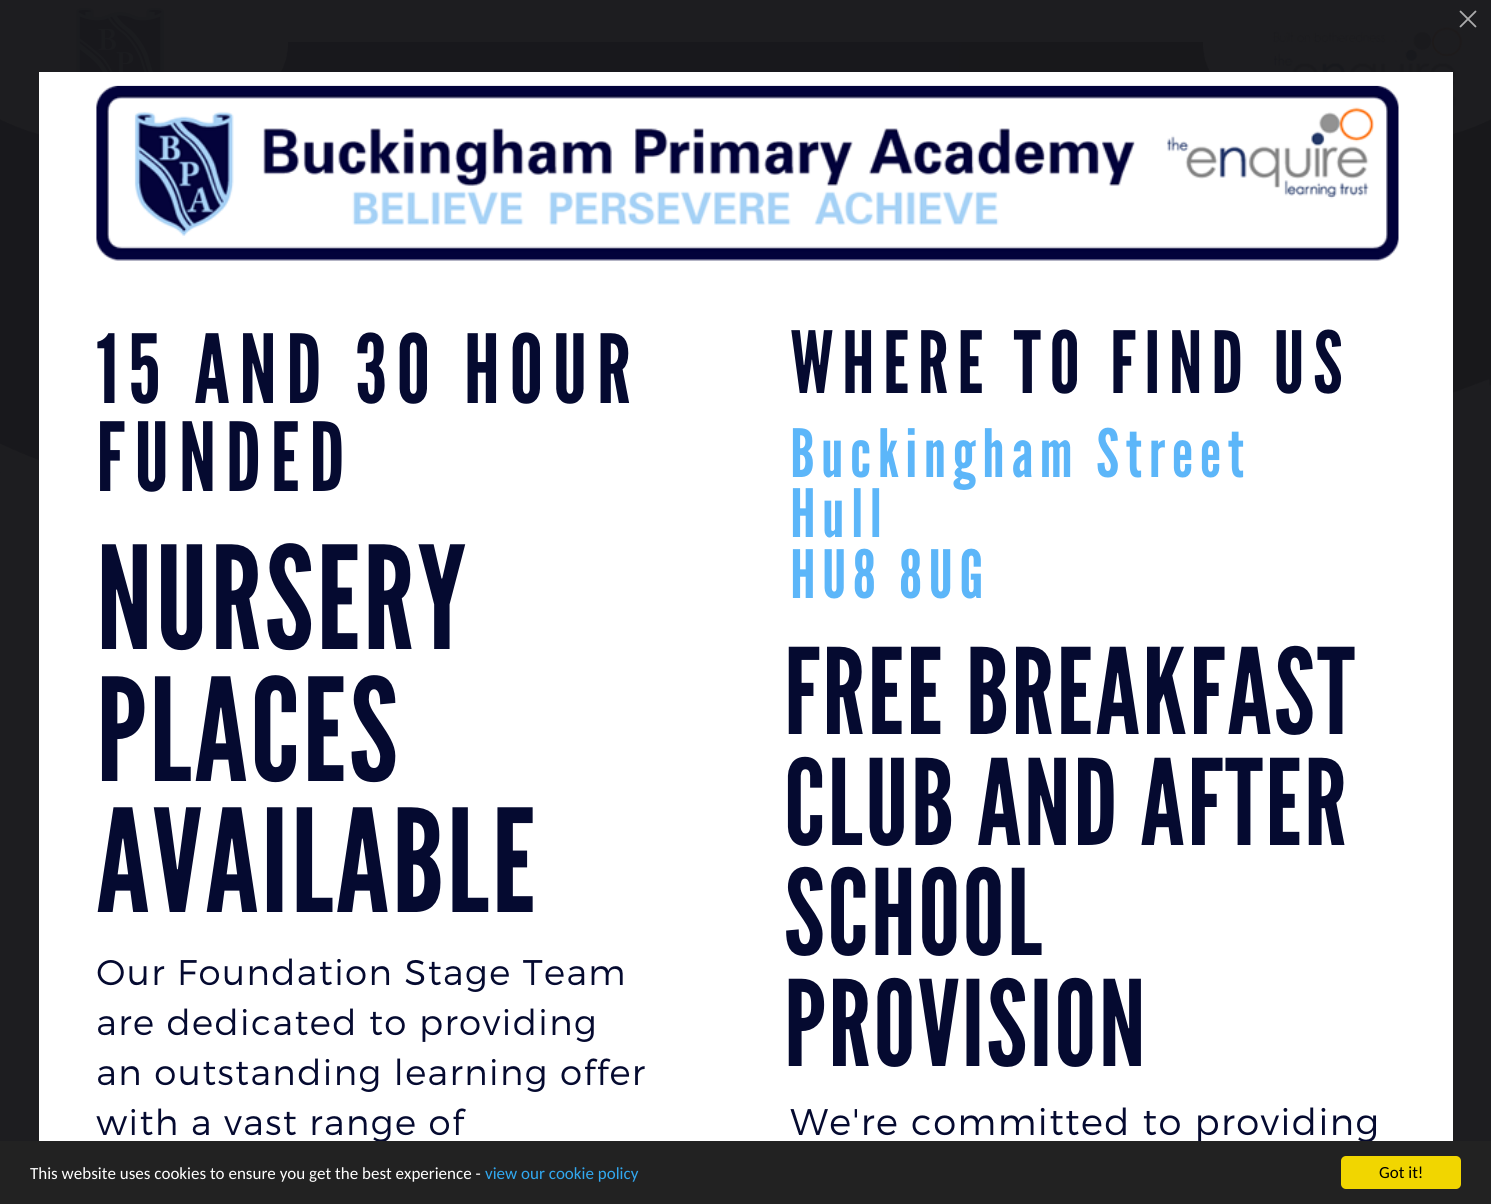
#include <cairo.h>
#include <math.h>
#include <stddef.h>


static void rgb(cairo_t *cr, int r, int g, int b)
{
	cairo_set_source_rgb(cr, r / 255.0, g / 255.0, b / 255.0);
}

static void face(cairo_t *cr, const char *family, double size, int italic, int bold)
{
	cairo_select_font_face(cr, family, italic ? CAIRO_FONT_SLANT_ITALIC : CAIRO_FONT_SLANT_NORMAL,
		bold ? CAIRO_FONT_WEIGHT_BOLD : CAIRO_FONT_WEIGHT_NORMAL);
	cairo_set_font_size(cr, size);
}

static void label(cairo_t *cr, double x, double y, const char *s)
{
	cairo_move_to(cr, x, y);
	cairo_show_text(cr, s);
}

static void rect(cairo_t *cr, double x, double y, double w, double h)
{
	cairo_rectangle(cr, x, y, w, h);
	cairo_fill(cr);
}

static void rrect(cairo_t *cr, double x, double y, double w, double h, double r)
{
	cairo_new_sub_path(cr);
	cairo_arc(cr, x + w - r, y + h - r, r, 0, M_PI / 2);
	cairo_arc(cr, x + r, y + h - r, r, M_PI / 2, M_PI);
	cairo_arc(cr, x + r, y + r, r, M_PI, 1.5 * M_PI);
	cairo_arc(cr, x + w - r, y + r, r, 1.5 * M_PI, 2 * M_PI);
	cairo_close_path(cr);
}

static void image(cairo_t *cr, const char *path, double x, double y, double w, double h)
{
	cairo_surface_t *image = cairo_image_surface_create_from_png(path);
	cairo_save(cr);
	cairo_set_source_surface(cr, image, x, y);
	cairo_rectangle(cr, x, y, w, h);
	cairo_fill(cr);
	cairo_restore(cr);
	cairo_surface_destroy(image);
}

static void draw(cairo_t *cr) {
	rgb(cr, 29, 29, 32);
	cairo_paint(cr);
	image(cr, "image4.png", 0, 42, 1491, 536);
	image(cr, "image0.png", 0, 0, 288, 135);
	image(cr, "image1.png", 76, 8, 88, 64);
	image(cr, "image2.png", 1203, 0, 288, 134);
	image(cr, "image3.png", 1273, 27, 190, 80);
	cairo_new_path(cr);
	cairo_move_to(cr, 1475.5, 26.5);
	cairo_line_to(cr, 1460.5, 11.5);
	cairo_move_to(cr, 1475.5, 11.5);
	cairo_line_to(cr, 1460.5, 26.5);
	rgb(cr, 171, 171, 172);
	cairo_set_line_width(cr, 1.8);
	cairo_set_line_cap(cr, CAIRO_LINE_CAP_ROUND);
	cairo_set_line_join(cr, CAIRO_LINE_JOIN_ROUND);
	cairo_stroke(cr);
	image(cr, "image5.png", 39, 72, 1414, 1069);
	rgb(cr, 34, 34, 34);
	rect(cr, 0, 1141, 1491, 63);
	face(cr, "Carlito", 17, 0, 0);
	rgb(cr, 255, 255, 255);
	label(cr, 30, 1179, "This website uses cookies to ensure you get the best experience -");
	rgb(cr, 49, 168, 240);
	label(cr, 485, 1179, "view our cookie policy");
	rgb(cr, 241, 214, 0);
	rrect(cr, 1341, 1156, 120, 33, 5);
	cairo_fill(cr);
	rgb(cr, 0, 0, 0);
	label(cr, 1379, 1178, "Got it!");
}

int main(void) {
	cairo_surface_t *surface = cairo_image_surface_create(CAIRO_FORMAT_RGB24, 1491, 1204);
	cairo_t *cr = cairo_create(surface);
	cairo_font_options_t *options = cairo_font_options_create();
	cairo_font_options_set_hint_metrics(options, CAIRO_HINT_METRICS_OFF);
	cairo_font_options_set_hint_style(options, CAIRO_HINT_STYLE_NONE);
	cairo_set_font_options(cr, options);
	cairo_set_miter_limit(cr, 4);
	draw(cr);
	cairo_surface_write_to_png(surface, "render.png");
	cairo_font_options_destroy(options);
	cairo_destroy(cr);
	cairo_surface_destroy(surface);
	return 0;
}
